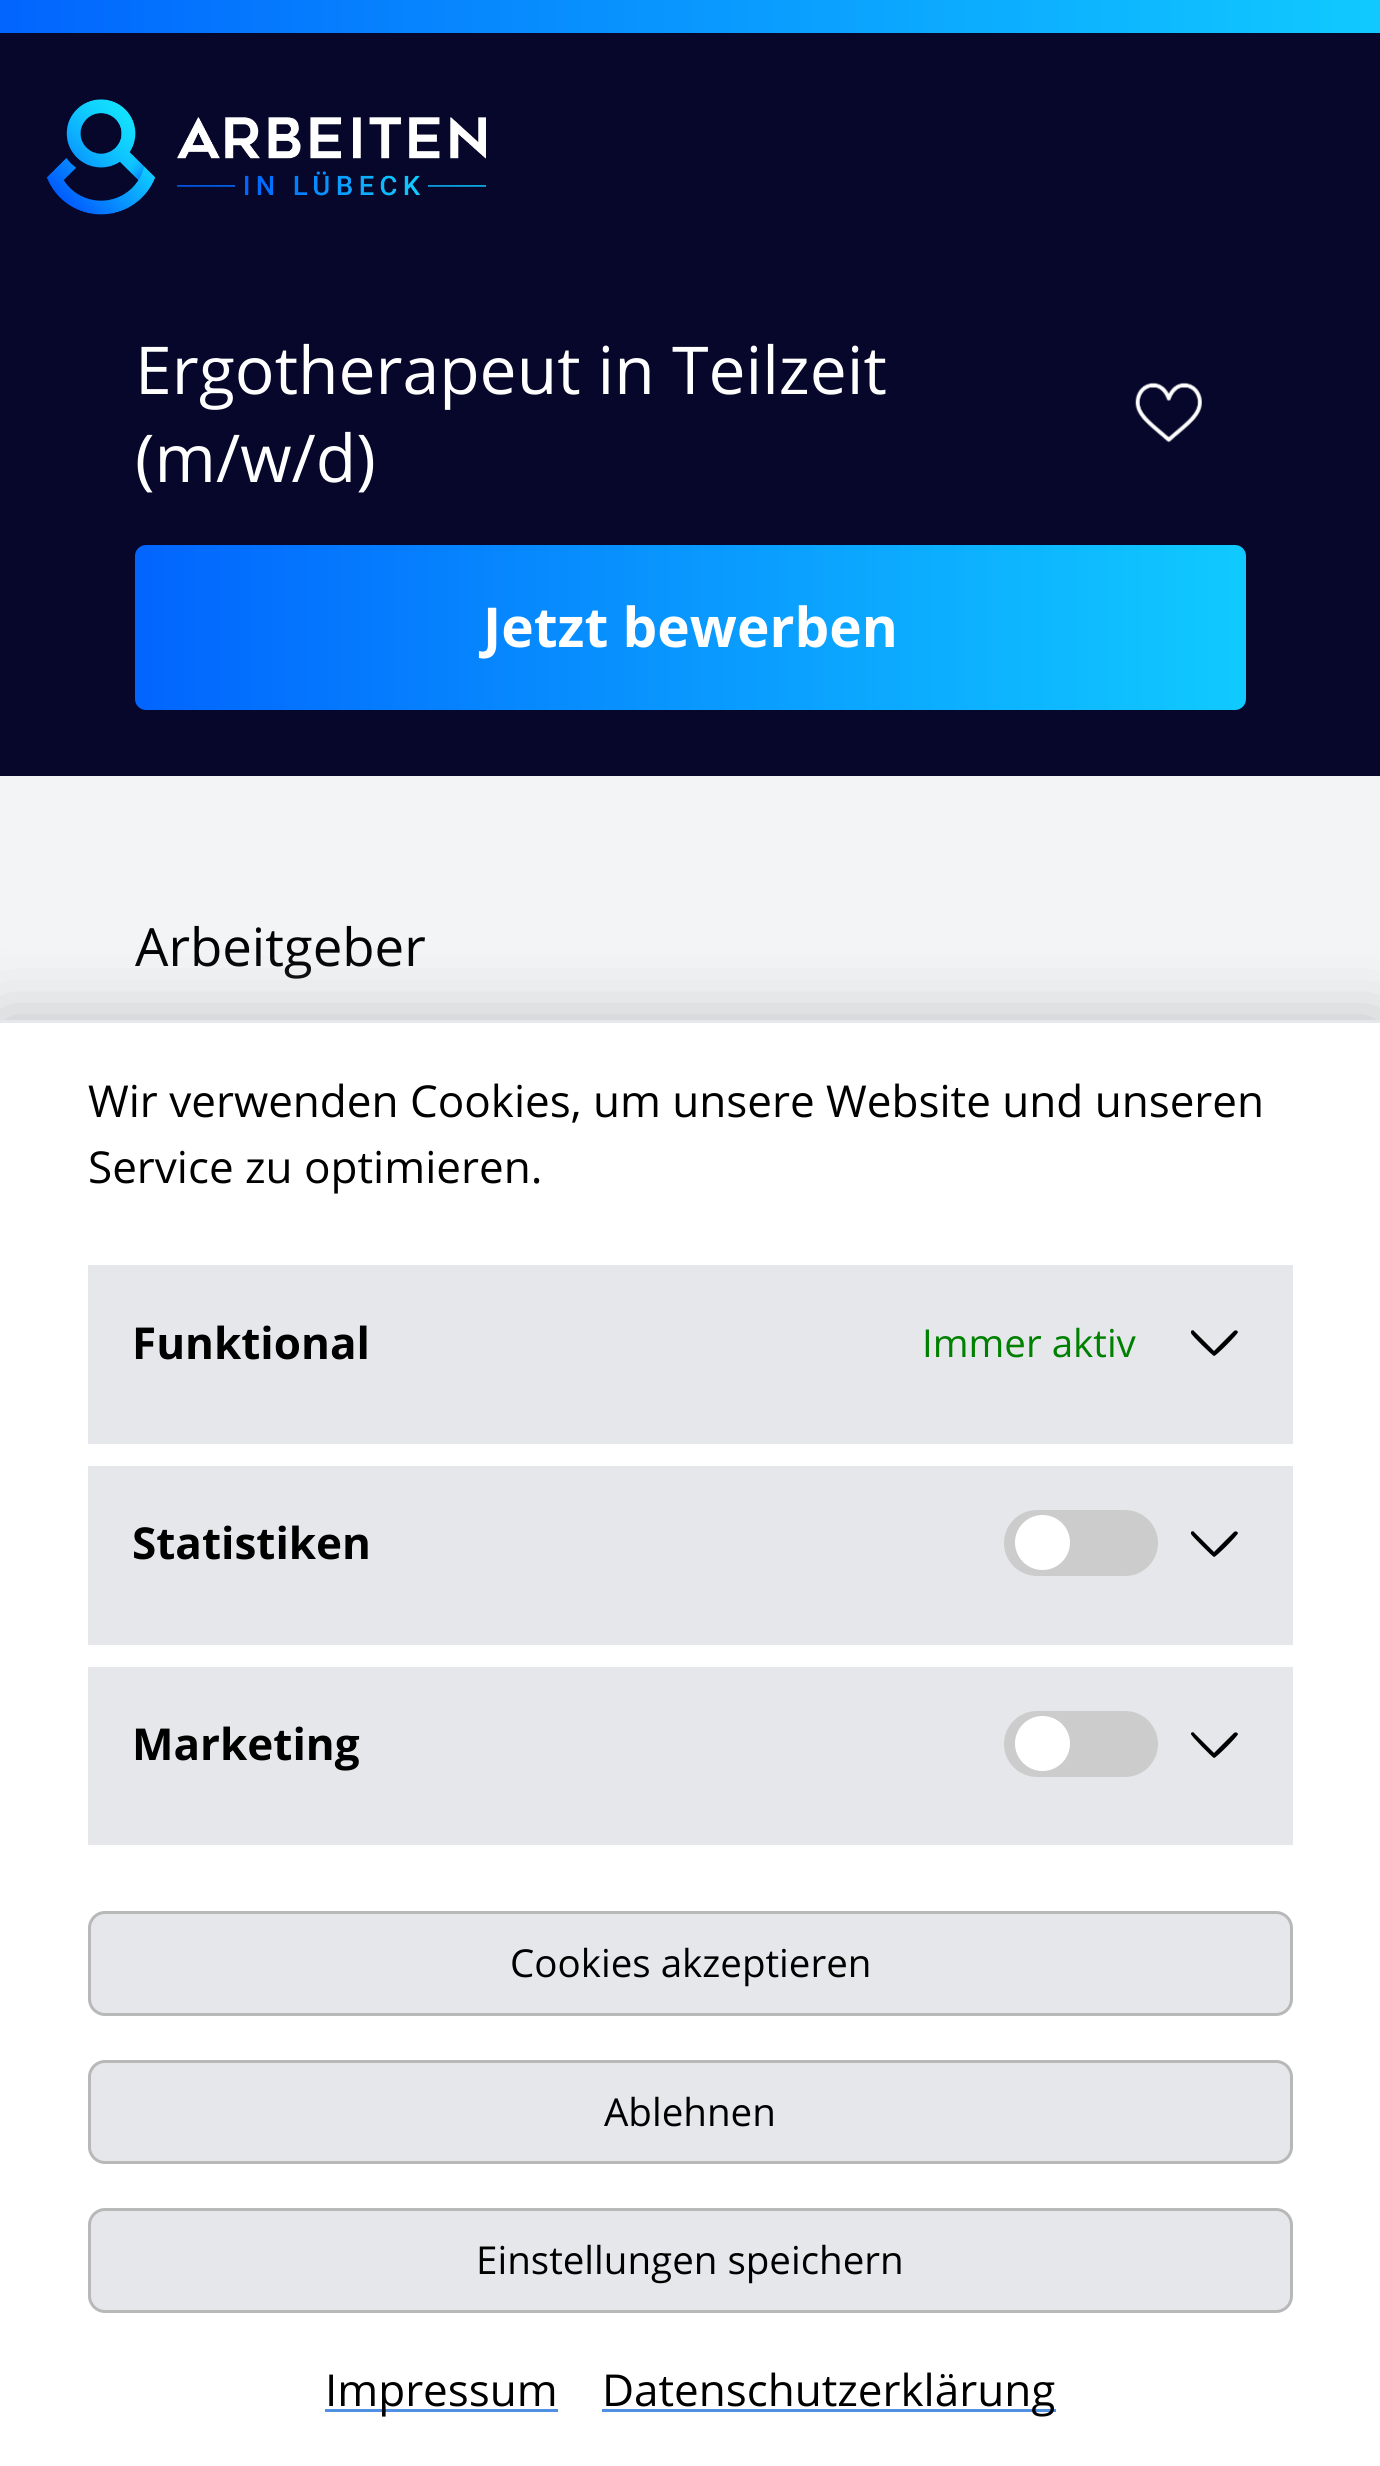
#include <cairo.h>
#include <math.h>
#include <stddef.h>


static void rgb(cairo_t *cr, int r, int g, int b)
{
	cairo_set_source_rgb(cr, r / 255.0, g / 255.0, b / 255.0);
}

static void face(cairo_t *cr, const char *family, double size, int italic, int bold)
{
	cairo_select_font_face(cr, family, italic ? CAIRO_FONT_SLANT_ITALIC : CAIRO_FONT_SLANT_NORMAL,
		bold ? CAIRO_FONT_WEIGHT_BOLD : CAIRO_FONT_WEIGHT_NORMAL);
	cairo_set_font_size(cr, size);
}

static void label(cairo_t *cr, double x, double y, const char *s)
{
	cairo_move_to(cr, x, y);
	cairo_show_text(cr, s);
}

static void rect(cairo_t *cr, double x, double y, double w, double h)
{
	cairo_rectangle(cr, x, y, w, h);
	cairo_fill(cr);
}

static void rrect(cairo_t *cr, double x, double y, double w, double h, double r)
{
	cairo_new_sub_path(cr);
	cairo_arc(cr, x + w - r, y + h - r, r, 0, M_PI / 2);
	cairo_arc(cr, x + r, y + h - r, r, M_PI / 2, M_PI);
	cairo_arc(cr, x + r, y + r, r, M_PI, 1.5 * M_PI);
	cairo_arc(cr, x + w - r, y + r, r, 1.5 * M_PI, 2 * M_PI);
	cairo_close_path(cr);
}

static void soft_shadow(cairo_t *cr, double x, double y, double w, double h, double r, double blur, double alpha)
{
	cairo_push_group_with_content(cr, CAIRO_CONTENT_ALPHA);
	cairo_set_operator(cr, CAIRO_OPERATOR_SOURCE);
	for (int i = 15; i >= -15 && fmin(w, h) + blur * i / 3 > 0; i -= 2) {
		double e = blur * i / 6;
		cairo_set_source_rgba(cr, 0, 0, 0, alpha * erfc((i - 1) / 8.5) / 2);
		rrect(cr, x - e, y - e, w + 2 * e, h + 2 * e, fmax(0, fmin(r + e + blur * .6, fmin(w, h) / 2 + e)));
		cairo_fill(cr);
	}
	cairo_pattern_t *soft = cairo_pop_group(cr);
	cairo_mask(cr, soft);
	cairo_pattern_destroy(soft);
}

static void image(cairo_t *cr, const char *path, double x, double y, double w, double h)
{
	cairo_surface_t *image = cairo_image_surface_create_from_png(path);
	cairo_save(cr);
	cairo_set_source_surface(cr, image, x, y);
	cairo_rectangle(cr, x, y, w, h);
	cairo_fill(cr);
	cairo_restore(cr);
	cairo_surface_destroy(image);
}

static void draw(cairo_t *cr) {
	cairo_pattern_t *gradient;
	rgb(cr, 6, 7, 42);
	cairo_paint(cr);
	gradient = cairo_pattern_create_linear(0, 17, 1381, 16);
	cairo_pattern_add_color_stop_rgba(gradient, 0, 0.008, 0.396, 0.996, 1);
	cairo_pattern_add_color_stop_rgba(gradient, 1, 0.063, 0.792, 1, 1);
	cairo_set_source(cr, gradient);
	cairo_pattern_destroy(gradient);
	rect(cr, 0, 0, 1380, 33);
	image(cr, "image0.png", 46, 99, 440, 116);
	face(cr, "Open Sans", 66, 0, 0);
	rgb(cr, 255, 255, 255);
	label(cr, 135, 394, "Ergotherapeut in Teilzeit");
	label(cr, 135, 482, "(m/w/d)");
	image(cr, "image1.png", 1135, 382, 67, 61);
	gradient = cairo_pattern_create_linear(135, 627, 1246, 627);
	cairo_pattern_add_color_stop_rgba(gradient, 0, 0.008, 0.396, 0.996, 1);
	cairo_pattern_add_color_stop_rgba(gradient, 1, 0.063, 0.792, 1, 1);
	cairo_set_source(cr, gradient);
	cairo_pattern_destroy(gradient);
	rrect(cr, 135, 545, 1111, 165, 11);
	cairo_fill(cr);
	face(cr, "Open Sans", 55, 0, 1);
	rgb(cr, 255, 255, 255);
	label(cr, 483, 647, "Jetzt bewerben");
	rgb(cr, 243, 244, 246);
	rect(cr, 0, 776, 1380, 244);
	face(cr, "Open Sans", 52.75, 0, 0);
	rgb(cr, 0, 0, 0);
	label(cr, 135, 966, "Arbeitgeber");
	rgb(cr, 192, 192, 192);
	soft_shadow(cr, 0, 1020, 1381, 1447, 0, 34.5, 1);
	rgb(cr, 255, 255, 255);
	rect(cr, 0, 1023, 1380, 1443);
	rgb(cr, 229, 231, 235);
	rect(cr, 0, 1020, 1380, 3);
	face(cr, "Open Sans", 44, 0, 0);
	rgb(cr, 0, 0, 0);
	label(cr, 88, 1117, "Wir verwenden Cookies, um unsere Website und unseren");
	label(cr, 88, 1183, "Service zu optimieren.");
	rgb(cr, 229, 231, 235);
	rect(cr, 88, 1265, 1205, 179);
	face(cr, "Open Sans", 44, 0, 1);
	rgb(cr, 0, 0, 0);
	label(cr, 132, 1359, "Funktional");
	face(cr, "Open Sans", 38.5, 0, 0);
	rgb(cr, 0, 128, 0);
	label(cr, 922, 1357, "Immer aktiv");
	rgb(cr, 0, 0, 0);
	cairo_new_path(cr);
	cairo_move_to(cr, 1214, 1351);
	cairo_line_to(cr, 1234, 1331);
	cairo_curve_to(cr, 1235, 1330, 1237, 1330, 1238, 1332);
	cairo_curve_to(cr, 1238, 1334, 1216, 1356, 1214, 1356);
	cairo_curve_to(cr, 1213, 1356, 1191, 1335, 1191, 1333);
	cairo_line_to(cr, 1191, 1331);
	cairo_curve_to(cr, 1192, 1330, 1194, 1330, 1194, 1331);
	cairo_close_path(cr);
	cairo_fill(cr);
	rgb(cr, 229, 231, 235);
	rect(cr, 88, 1466, 1205, 179);
	face(cr, "Open Sans", 44, 0, 1);
	rgb(cr, 0, 0, 0);
	label(cr, 132, 1559, "Statistiken");
	rgb(cr, 204, 204, 204);
	rrect(cr, 1004, 1510, 154, 66, 33);
	cairo_fill(cr);
	rgb(cr, 255, 255, 255);
	cairo_arc(cr, 1042.5, 1542.5, 27.5, 0, 2 * M_PI);
	cairo_fill(cr);
	rgb(cr, 0, 0, 0);
	cairo_new_path(cr);
	cairo_move_to(cr, 1214, 1552);
	cairo_line_to(cr, 1234, 1532);
	cairo_curve_to(cr, 1235, 1531, 1237, 1531, 1238, 1533);
	cairo_curve_to(cr, 1238, 1535, 1216, 1557, 1214, 1557);
	cairo_curve_to(cr, 1213, 1557, 1191, 1535, 1191, 1534);
	cairo_line_to(cr, 1191, 1532);
	cairo_curve_to(cr, 1192, 1531, 1194, 1531, 1194, 1532);
	cairo_close_path(cr);
	cairo_fill(cr);
	rgb(cr, 229, 231, 235);
	rect(cr, 88, 1667, 1205, 178);
	rgb(cr, 0, 0, 0);
	label(cr, 132, 1760, "Marketing");
	rgb(cr, 204, 204, 204);
	rrect(cr, 1004, 1711, 154, 66, 33);
	cairo_fill(cr);
	rgb(cr, 255, 255, 255);
	cairo_arc(cr, 1042.5, 1743.5, 27.5, 0, 2 * M_PI);
	cairo_fill(cr);
	rgb(cr, 0, 0, 0);
	cairo_new_path(cr);
	cairo_move_to(cr, 1214, 1753);
	cairo_line_to(cr, 1234, 1733);
	cairo_curve_to(cr, 1235, 1732, 1237, 1732, 1238, 1734);
	cairo_curve_to(cr, 1238, 1736, 1216, 1758, 1214, 1758);
	cairo_curve_to(cr, 1213, 1758, 1191, 1736, 1191, 1734);
	cairo_line_to(cr, 1191, 1733);
	cairo_curve_to(cr, 1192, 1732, 1194, 1732, 1194, 1733);
	cairo_close_path(cr);
	cairo_fill(cr);
	rgb(cr, 229, 231, 235);
	rrect(cr, 89.5, 1912.5, 1202, 102, 15.5);
	cairo_fill_preserve(cr);
	rgb(cr, 184, 184, 184);
	cairo_set_line_width(cr, 3);
	cairo_stroke(cr);
	face(cr, "Open Sans", 38.5, 0, 0);
	rgb(cr, 0, 0, 0);
	label(cr, 510, 1977, "Cookies akzeptieren");
	rgb(cr, 229, 231, 235);
	rrect(cr, 89.5, 2061.5, 1202, 101, 15.5);
	cairo_fill_preserve(cr);
	rgb(cr, 184, 184, 184);
	cairo_stroke(cr);
	rgb(cr, 0, 0, 0);
	label(cr, 604, 2126, "Ablehnen");
	rgb(cr, 229, 231, 235);
	rrect(cr, 89.5, 2209.5, 1202, 102, 15.5);
	cairo_fill_preserve(cr);
	rgb(cr, 184, 184, 184);
	cairo_stroke(cr);
	rgb(cr, 0, 0, 0);
	label(cr, 476, 2274, "Einstellungen speichern");
	rgb(cr, 80, 144, 226);
	rect(cr, 325, 2409, 233, 3);
	face(cr, "Open Sans", 44, 0, 0);
	rgb(cr, 0, 0, 0);
	label(cr, 325, 2406, "Impressum");
	rgb(cr, 80, 144, 226);
	rect(cr, 602, 2409, 454, 3);
	rgb(cr, 0, 0, 0);
	label(cr, 602, 2406, "Datenschutzerklärung");
}

int main(void) {
	cairo_surface_t *surface = cairo_image_surface_create(CAIRO_FORMAT_RGB24, 1380, 2466);
	cairo_t *cr = cairo_create(surface);
	cairo_font_options_t *options = cairo_font_options_create();
	cairo_font_options_set_hint_metrics(options, CAIRO_HINT_METRICS_OFF);
	cairo_font_options_set_hint_style(options, CAIRO_HINT_STYLE_NONE);
	cairo_set_font_options(cr, options);
	cairo_set_miter_limit(cr, 4);
	draw(cr);
	cairo_surface_write_to_png(surface, "render.png");
	cairo_font_options_destroy(options);
	cairo_destroy(cr);
	cairo_surface_destroy(surface);
	return 0;
}
